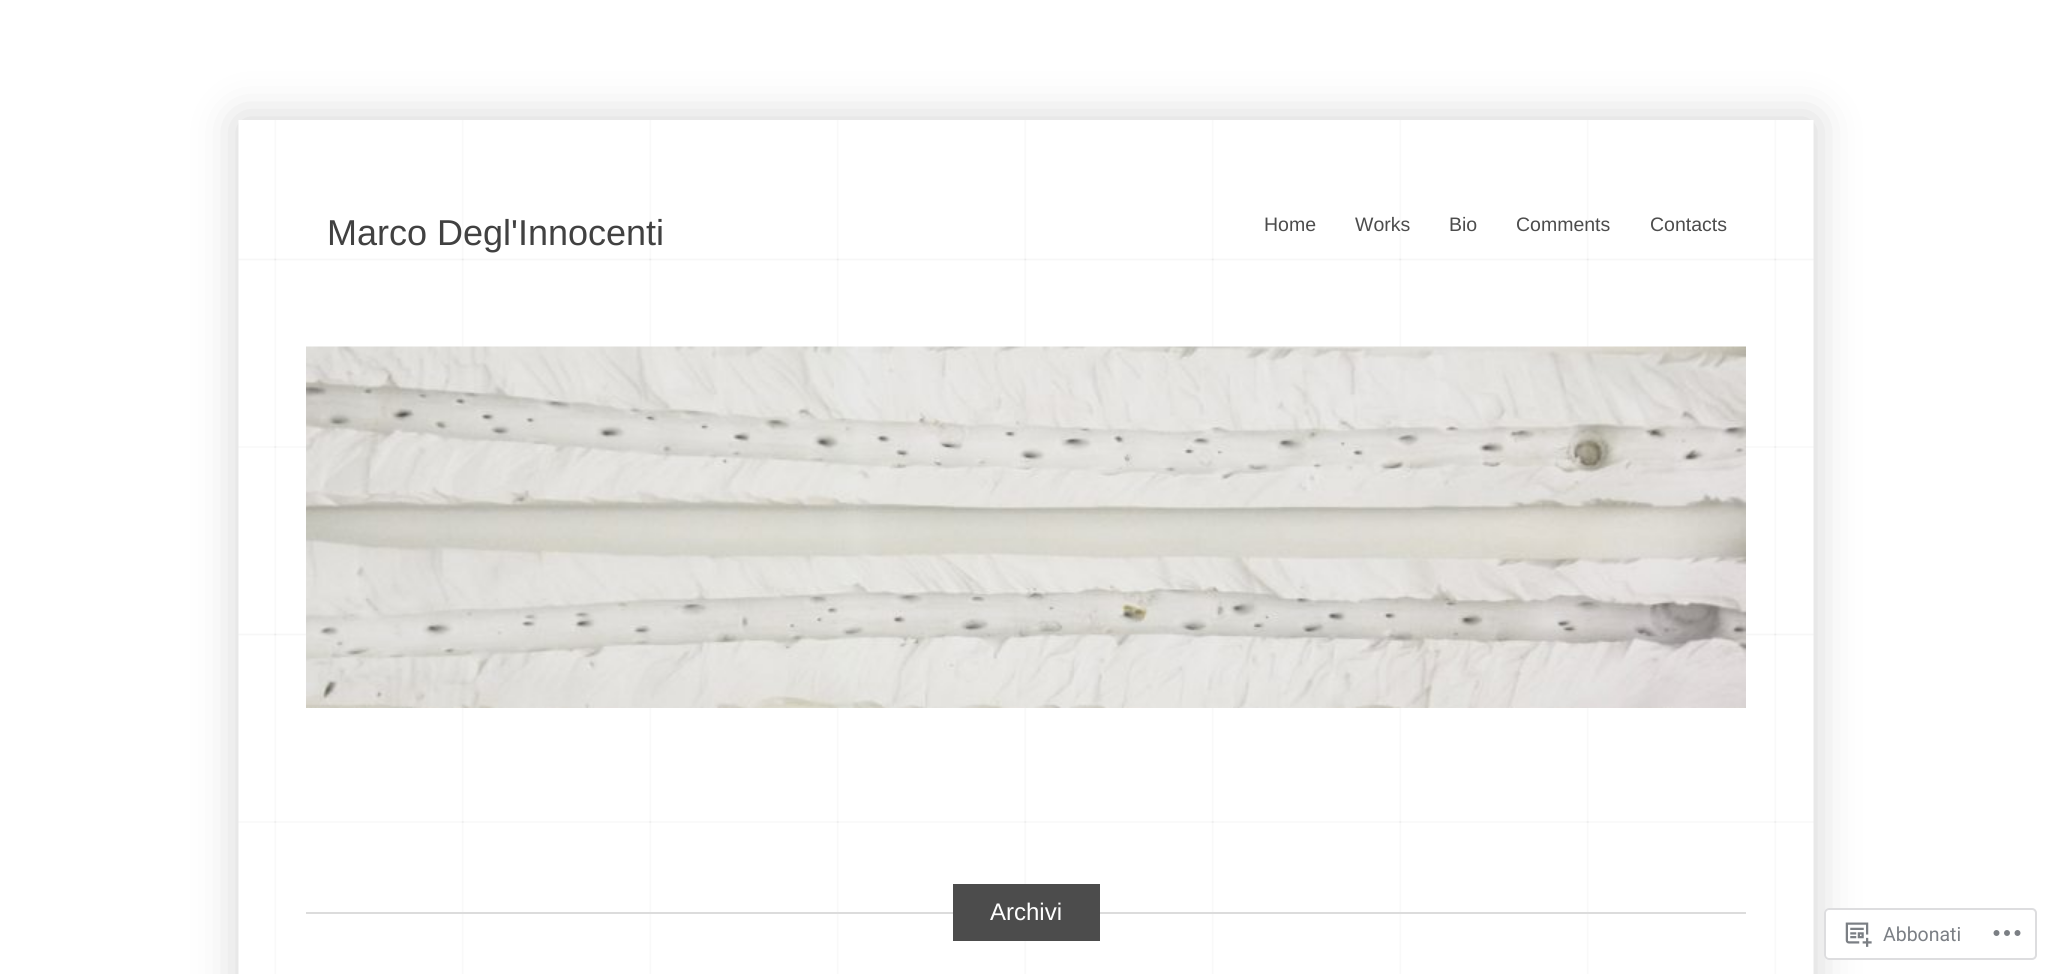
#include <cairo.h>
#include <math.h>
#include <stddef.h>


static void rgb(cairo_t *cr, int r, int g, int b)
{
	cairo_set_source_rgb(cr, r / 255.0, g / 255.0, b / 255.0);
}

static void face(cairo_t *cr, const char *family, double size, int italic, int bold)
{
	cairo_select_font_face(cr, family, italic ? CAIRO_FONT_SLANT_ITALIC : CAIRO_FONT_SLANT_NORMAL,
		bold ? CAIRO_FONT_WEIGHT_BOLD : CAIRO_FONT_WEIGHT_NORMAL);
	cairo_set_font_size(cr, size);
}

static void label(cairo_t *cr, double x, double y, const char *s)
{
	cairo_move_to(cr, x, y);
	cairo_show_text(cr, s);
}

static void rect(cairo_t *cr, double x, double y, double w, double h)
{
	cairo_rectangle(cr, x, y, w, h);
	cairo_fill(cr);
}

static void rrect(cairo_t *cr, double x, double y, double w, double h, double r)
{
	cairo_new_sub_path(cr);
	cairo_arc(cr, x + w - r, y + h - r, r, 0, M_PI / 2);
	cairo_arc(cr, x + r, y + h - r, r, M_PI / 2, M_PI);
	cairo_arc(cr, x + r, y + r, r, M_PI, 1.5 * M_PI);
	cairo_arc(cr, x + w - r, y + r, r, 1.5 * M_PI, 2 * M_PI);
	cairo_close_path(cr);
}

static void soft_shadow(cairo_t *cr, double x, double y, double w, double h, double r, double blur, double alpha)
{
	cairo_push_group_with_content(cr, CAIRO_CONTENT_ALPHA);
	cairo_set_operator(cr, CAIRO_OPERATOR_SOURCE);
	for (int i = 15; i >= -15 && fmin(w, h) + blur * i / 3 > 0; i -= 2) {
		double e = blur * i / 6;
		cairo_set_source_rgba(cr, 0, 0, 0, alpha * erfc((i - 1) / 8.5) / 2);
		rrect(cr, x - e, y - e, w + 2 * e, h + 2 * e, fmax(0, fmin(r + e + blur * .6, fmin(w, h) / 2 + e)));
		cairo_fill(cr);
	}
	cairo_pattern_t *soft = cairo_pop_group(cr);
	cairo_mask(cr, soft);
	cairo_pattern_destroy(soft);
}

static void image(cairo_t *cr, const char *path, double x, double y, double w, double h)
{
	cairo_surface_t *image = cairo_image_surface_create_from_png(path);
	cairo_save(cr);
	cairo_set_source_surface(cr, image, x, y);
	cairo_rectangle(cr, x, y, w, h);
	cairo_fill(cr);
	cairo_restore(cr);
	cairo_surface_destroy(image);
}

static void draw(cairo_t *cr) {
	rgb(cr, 255, 255, 255);
	cairo_paint(cr);
	rgb(cr, 100, 100, 100);
	soft_shadow(cr, 239, 120, 1575, 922, 0, 22.5, 0.3);
	image(cr, "image0.png", 238, 120, 1576, 854);
	face(cr, "Arimo", 36, 0, 0);
	rgb(cr, 65, 65, 65);
	label(cr, 327, 245, "Marco Degl'Innocenti");
	face(cr, "Liberation Sans", 19.5, 0, 0);
	rgb(cr, 76, 76, 76);
	label(cr, 1264, 231, "Home");
	label(cr, 1355, 231, "Works");
	label(cr, 1449, 231, "Bio");
	label(cr, 1516, 231, "Comments");
	label(cr, 1650, 231, "Contacts");
	image(cr, "image1.png", 306, 346, 1440, 362);
	rgb(cr, 220, 220, 220);
	rect(cr, 306, 912, 1440, 2);
	rgb(cr, 76, 76, 76);
	rect(cr, 953, 884, 147, 57);
	face(cr, "Arimo", 24, 0, 0);
	rgb(cr, 255, 255, 255);
	label(cr, 990, 920, "Archivi");
	cairo_set_source_rgba(cr, 1, 1, 1, 0.98);
	rrect(cr, 1824, 908, 213, 52, 5);
	cairo_fill(cr);
	rrect(cr, 1825, 909, 211, 50, 4);
	cairo_set_source_rgba(cr, 0.863, 0.863, 0.871, 0.98);
	cairo_stroke(cr);
	image(cr, "image2.png", 1845, 922, 27, 25);
	face(cr, "Roboto", 19.5, 0, 0);
	rgb(cr, 123, 127, 133);
	label(cr, 1883, 941, "Abbonati");
	image(cr, "image3.png", 1993, 930, 28, 6);
}

int main(void) {
	cairo_surface_t *surface = cairo_image_surface_create(CAIRO_FORMAT_RGB24, 2051, 974);
	cairo_t *cr = cairo_create(surface);
	cairo_font_options_t *options = cairo_font_options_create();
	cairo_font_options_set_hint_metrics(options, CAIRO_HINT_METRICS_OFF);
	cairo_font_options_set_hint_style(options, CAIRO_HINT_STYLE_NONE);
	cairo_set_font_options(cr, options);
	cairo_set_miter_limit(cr, 4);
	draw(cr);
	cairo_surface_write_to_png(surface, "render.png");
	cairo_font_options_destroy(options);
	cairo_destroy(cr);
	cairo_surface_destroy(surface);
	return 0;
}
